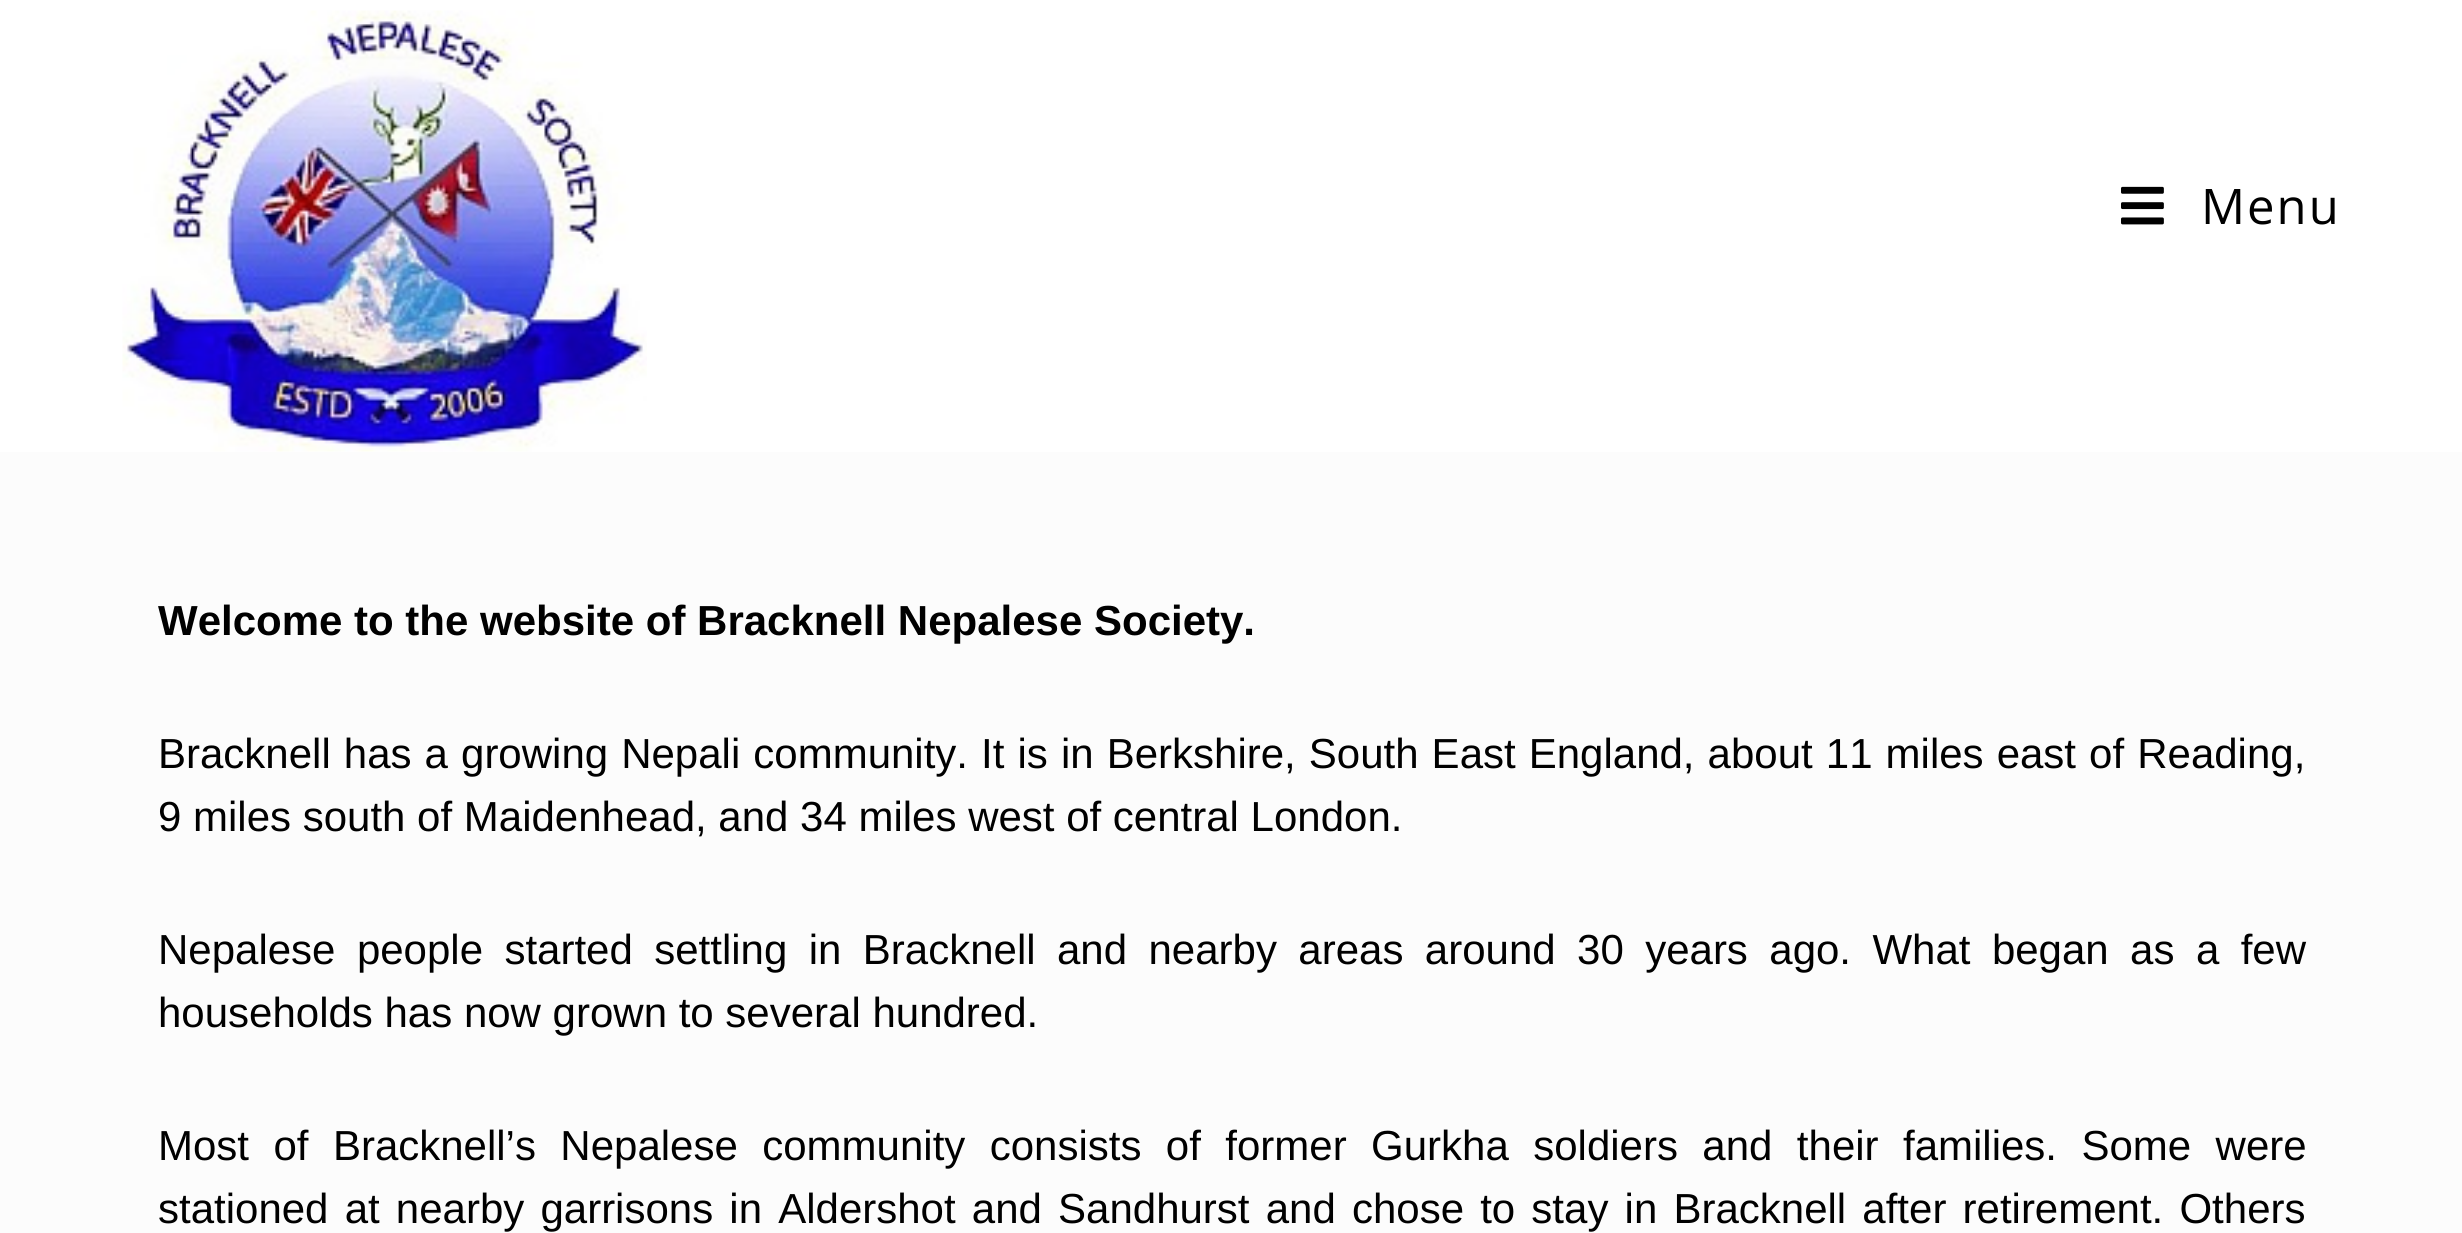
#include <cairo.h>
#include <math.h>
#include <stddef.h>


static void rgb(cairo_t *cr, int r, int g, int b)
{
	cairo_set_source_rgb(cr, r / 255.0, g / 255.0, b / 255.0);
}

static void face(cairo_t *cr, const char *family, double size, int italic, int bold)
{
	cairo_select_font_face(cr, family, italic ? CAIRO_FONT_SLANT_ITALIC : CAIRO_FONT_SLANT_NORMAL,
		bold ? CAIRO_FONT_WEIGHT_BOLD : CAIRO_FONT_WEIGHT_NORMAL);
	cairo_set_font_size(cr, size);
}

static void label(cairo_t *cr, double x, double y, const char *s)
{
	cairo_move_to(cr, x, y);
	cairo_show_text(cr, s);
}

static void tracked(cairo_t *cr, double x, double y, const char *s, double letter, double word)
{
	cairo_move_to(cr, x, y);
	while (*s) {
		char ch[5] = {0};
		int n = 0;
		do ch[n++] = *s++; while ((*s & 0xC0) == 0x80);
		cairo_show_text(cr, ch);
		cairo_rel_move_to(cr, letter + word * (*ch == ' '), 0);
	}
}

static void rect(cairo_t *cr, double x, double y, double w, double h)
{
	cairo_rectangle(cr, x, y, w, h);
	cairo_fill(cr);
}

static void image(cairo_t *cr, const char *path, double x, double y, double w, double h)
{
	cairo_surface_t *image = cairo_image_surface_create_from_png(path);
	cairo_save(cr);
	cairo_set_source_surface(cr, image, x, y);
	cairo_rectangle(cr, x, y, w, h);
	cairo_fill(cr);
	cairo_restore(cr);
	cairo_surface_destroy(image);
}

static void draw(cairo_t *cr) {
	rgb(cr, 252, 252, 252);
	cairo_paint(cr);
	rgb(cr, 255, 255, 255);
	rect(cr, 0, 0, 2462, 452);
	image(cr, "image0.png", 122, 10, 525, 442);
	image(cr, "image1.png", 2121, 186, 43, 39);
	face(cr, "Open Sans", 49, 0, 0);
	rgb(cr, 0, 0, 0);
	tracked(cr, 2201, 224, "Menu", 2, 0);
	face(cr, "Liberation Sans", 42, 0, 1);
	label(cr, 158, 635, "Welcome to the website of Bracknell Nepalese Society.");
	face(cr, "Liberation Sans", 42, 0, 0);
	tracked(cr, 158, 768, "Bracknell has a growing Nepali community. It is in Berkshire, South East England, about 11 miles east of Reading,", 0, 1.4);
	label(cr, 158, 831, "9 miles south of Maidenhead, and 34 miles west of central London.");
	tracked(cr, 158, 964, "Nepalese people started settling in Bracknell and nearby areas around 30 years ago. What began as a few", 0, 9.75);
	label(cr, 158, 1027, "households has now grown to several hundred.");
	tracked(cr, 158, 1160, "Most of Bracknell’s Nepalese community consists of former Gurkha soldiers and their families. Some were", 0, 12.75);
	tracked(cr, 158, 1223, "stationed at nearby garrisons in Aldershot and Sandhurst and chose to stay in Bracknell after retirement. Others", 0, 4.5);
}

int main(void) {
	cairo_surface_t *surface = cairo_image_surface_create(CAIRO_FORMAT_RGB24, 2462, 1233);
	cairo_t *cr = cairo_create(surface);
	cairo_font_options_t *options = cairo_font_options_create();
	cairo_font_options_set_hint_metrics(options, CAIRO_HINT_METRICS_OFF);
	cairo_font_options_set_hint_style(options, CAIRO_HINT_STYLE_NONE);
	cairo_set_font_options(cr, options);
	cairo_set_miter_limit(cr, 4);
	draw(cr);
	cairo_surface_write_to_png(surface, "render.png");
	cairo_font_options_destroy(options);
	cairo_destroy(cr);
	cairo_surface_destroy(surface);
	return 0;
}
